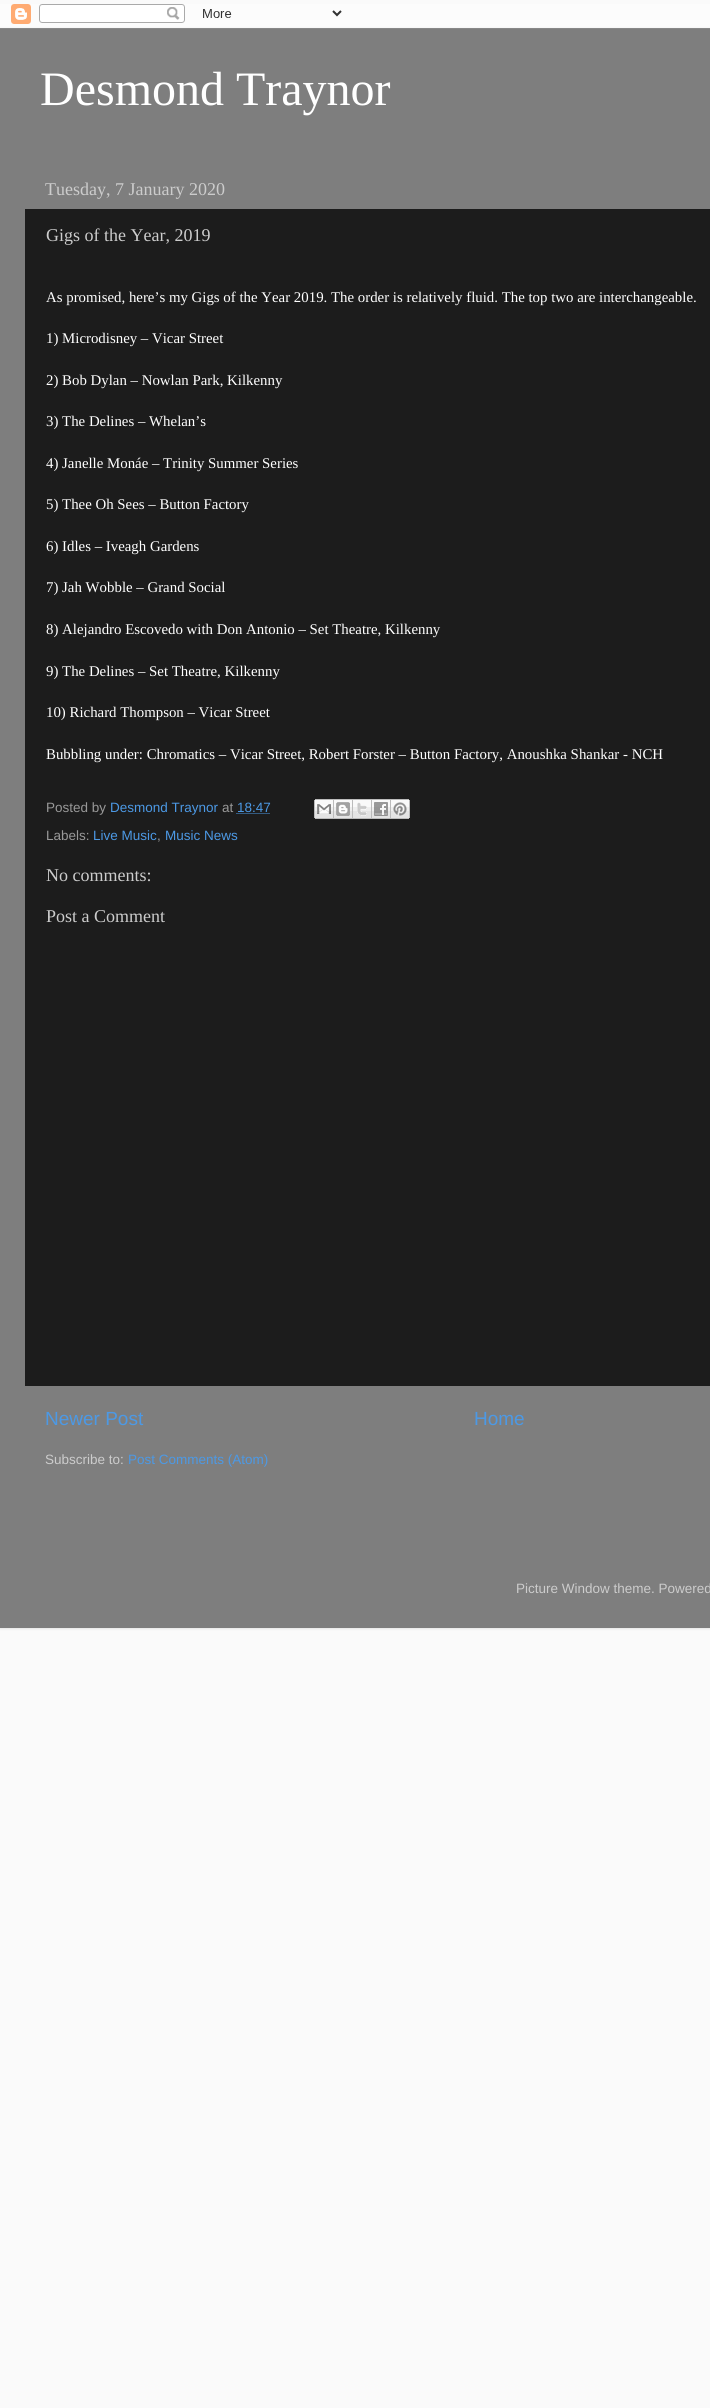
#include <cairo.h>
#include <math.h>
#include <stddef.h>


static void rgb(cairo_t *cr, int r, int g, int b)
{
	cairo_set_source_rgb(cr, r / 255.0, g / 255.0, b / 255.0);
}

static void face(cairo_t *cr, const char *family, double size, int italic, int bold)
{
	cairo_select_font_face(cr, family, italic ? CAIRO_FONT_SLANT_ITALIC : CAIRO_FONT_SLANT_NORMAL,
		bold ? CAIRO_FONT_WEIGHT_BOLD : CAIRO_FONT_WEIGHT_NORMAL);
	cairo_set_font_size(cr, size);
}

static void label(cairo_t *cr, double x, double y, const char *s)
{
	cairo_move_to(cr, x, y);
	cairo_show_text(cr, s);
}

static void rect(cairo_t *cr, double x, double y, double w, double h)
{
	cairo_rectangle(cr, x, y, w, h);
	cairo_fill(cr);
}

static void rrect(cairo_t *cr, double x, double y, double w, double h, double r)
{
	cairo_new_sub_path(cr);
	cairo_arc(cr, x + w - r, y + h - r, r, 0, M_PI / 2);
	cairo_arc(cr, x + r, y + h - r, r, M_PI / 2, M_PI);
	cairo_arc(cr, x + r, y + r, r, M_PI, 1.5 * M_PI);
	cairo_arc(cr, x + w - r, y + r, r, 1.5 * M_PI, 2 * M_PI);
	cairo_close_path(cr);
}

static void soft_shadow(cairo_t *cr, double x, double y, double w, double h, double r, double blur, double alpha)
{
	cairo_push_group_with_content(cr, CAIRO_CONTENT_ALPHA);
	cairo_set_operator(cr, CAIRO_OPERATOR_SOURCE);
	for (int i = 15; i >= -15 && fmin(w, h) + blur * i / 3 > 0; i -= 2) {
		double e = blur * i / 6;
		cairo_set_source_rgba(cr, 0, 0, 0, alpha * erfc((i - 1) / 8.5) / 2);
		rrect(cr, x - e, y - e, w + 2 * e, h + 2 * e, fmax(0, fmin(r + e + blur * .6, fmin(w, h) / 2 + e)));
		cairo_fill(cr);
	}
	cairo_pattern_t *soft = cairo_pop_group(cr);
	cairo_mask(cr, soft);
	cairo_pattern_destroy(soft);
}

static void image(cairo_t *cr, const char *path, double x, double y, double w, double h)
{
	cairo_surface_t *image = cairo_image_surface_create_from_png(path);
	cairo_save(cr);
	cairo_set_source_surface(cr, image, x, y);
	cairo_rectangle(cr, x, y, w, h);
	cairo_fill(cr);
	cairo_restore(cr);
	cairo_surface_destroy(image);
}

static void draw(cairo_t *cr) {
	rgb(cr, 250, 250, 250);
	cairo_paint(cr);
	rgb(cr, 0, 0, 0);
	soft_shadow(cr, 0, 29, 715, 1599, 0, 1.5, 0.15);
	image(cr, "image0.png", 0, 4, 710, 25);
	rgb(cr, 126, 126, 126);
	rect(cr, 0, 29, 710, 1599);
	face(cr, "Liberation Serif", 48, 0, 0);
	rgb(cr, 255, 255, 255);
	label(cr, 40, 105, "Desmond Traynor");
	face(cr, "Liberation Serif", 18, 0, 0);
	rgb(cr, 204, 204, 204);
	label(cr, 45, 195, "Tuesday, 7 January 2020");
	rgb(cr, 28, 28, 28);
	rect(cr, 25, 209, 685, 1177);
	rgb(cr, 204, 204, 204);
	label(cr, 46, 241, "Gigs of the Year, 2019");
	face(cr, "Liberation Serif", 14.85, 0, 0);
	rgb(cr, 255, 255, 255);
	label(cr, 46, 302, "As promised, here’s my Gigs of the Year 2019. The order is relatively fluid. The top two are interchangeable.");
	label(cr, 46, 343, "1) Microdisney – Vicar Street");
	label(cr, 46, 385, "2) Bob Dylan – Nowlan Park, Kilkenny");
	label(cr, 46, 426, "3) The Delines – Whelan’s");
	label(cr, 46, 468, "4) Janelle Monáe – Trinity Summer Series");
	label(cr, 46, 509, "5) Thee Oh Sees – Button Factory");
	label(cr, 46, 551, "6) Idles – Iveagh Gardens");
	label(cr, 46, 592, "7) Jah Wobble – Grand Social");
	label(cr, 46, 634, "8) Alejandro Escovedo with Don Antonio – Set Theatre, Kilkenny");
	label(cr, 46, 676, "9) The Delines – Set Theatre, Kilkenny");
	label(cr, 46, 717, "10) Richard Thompson – Vicar Street");
	label(cr, 46, 759, "Bubbling under: Chromatics – Vicar Street, Robert Forster – Button Factory, Anoushka Shankar - NCH");
	face(cr, "Liberation Sans", 13.5, 0, 0);
	rgb(cr, 153, 153, 153);
	label(cr, 46, 812, "Posted by");
	rgb(cr, 76, 153, 229);
	label(cr, 110, 812, "Desmond Traynor");
	rgb(cr, 153, 153, 153);
	label(cr, 222, 812, "at");
	rgb(cr, 76, 153, 229);
	label(cr, 237, 812, "18:47");
	cairo_new_path(cr);
	cairo_move_to(cr, 236.5, 813.5);
	cairo_line_to(cr, 270.5, 813.5);
	cairo_set_line_width(cr, 1);
	cairo_set_dash(cr, (double[]){1, 1}, 2, 0);
	cairo_stroke(cr);
	image(cr, "image1.png", 314, 799, 20, 20);
	image(cr, "image2.png", 334, 799, 19, 20);
	image(cr, "image3.png", 353, 799, 19, 20);
	image(cr, "image4.png", 372, 799, 19, 20);
	image(cr, "image5.png", 391, 799, 19, 20);
	rgb(cr, 153, 153, 153);
	label(cr, 46, 840, "Labels:");
	rgb(cr, 76, 153, 229);
	label(cr, 93, 840, "Live Music");
	rgb(cr, 153, 153, 153);
	label(cr, 157, 840, ",");
	rgb(cr, 76, 153, 229);
	label(cr, 165, 840, "Music News");
	face(cr, "Liberation Serif", 18, 0, 0);
	rgb(cr, 204, 204, 204);
	label(cr, 46, 881, "No comments:");
	label(cr, 46, 922, "Post a Comment");
	face(cr, "Liberation Sans", 19, 0, 0);
	rgb(cr, 76, 153, 229);
	label(cr, 45, 1425, "Newer Post");
	label(cr, 474, 1425, "Home");
	face(cr, "Liberation Sans", 13.5, 0, 0);
	rgb(cr, 204, 204, 204);
	label(cr, 45, 1464, "Subscribe to:");
	rgb(cr, 76, 153, 229);
	label(cr, 128, 1464, "Post Comments (Atom)");
	rgb(cr, 204, 204, 204);
	label(cr, 516, 1593, "Picture Window theme. Powered");
}

int main(void) {
	cairo_surface_t *surface = cairo_image_surface_create(CAIRO_FORMAT_RGB24, 710, 2408);
	cairo_t *cr = cairo_create(surface);
	cairo_font_options_t *options = cairo_font_options_create();
	cairo_font_options_set_hint_metrics(options, CAIRO_HINT_METRICS_OFF);
	cairo_font_options_set_hint_style(options, CAIRO_HINT_STYLE_NONE);
	cairo_set_font_options(cr, options);
	cairo_set_miter_limit(cr, 4);
	draw(cr);
	cairo_surface_write_to_png(surface, "render.png");
	cairo_font_options_destroy(options);
	cairo_destroy(cr);
	cairo_surface_destroy(surface);
	return 0;
}
